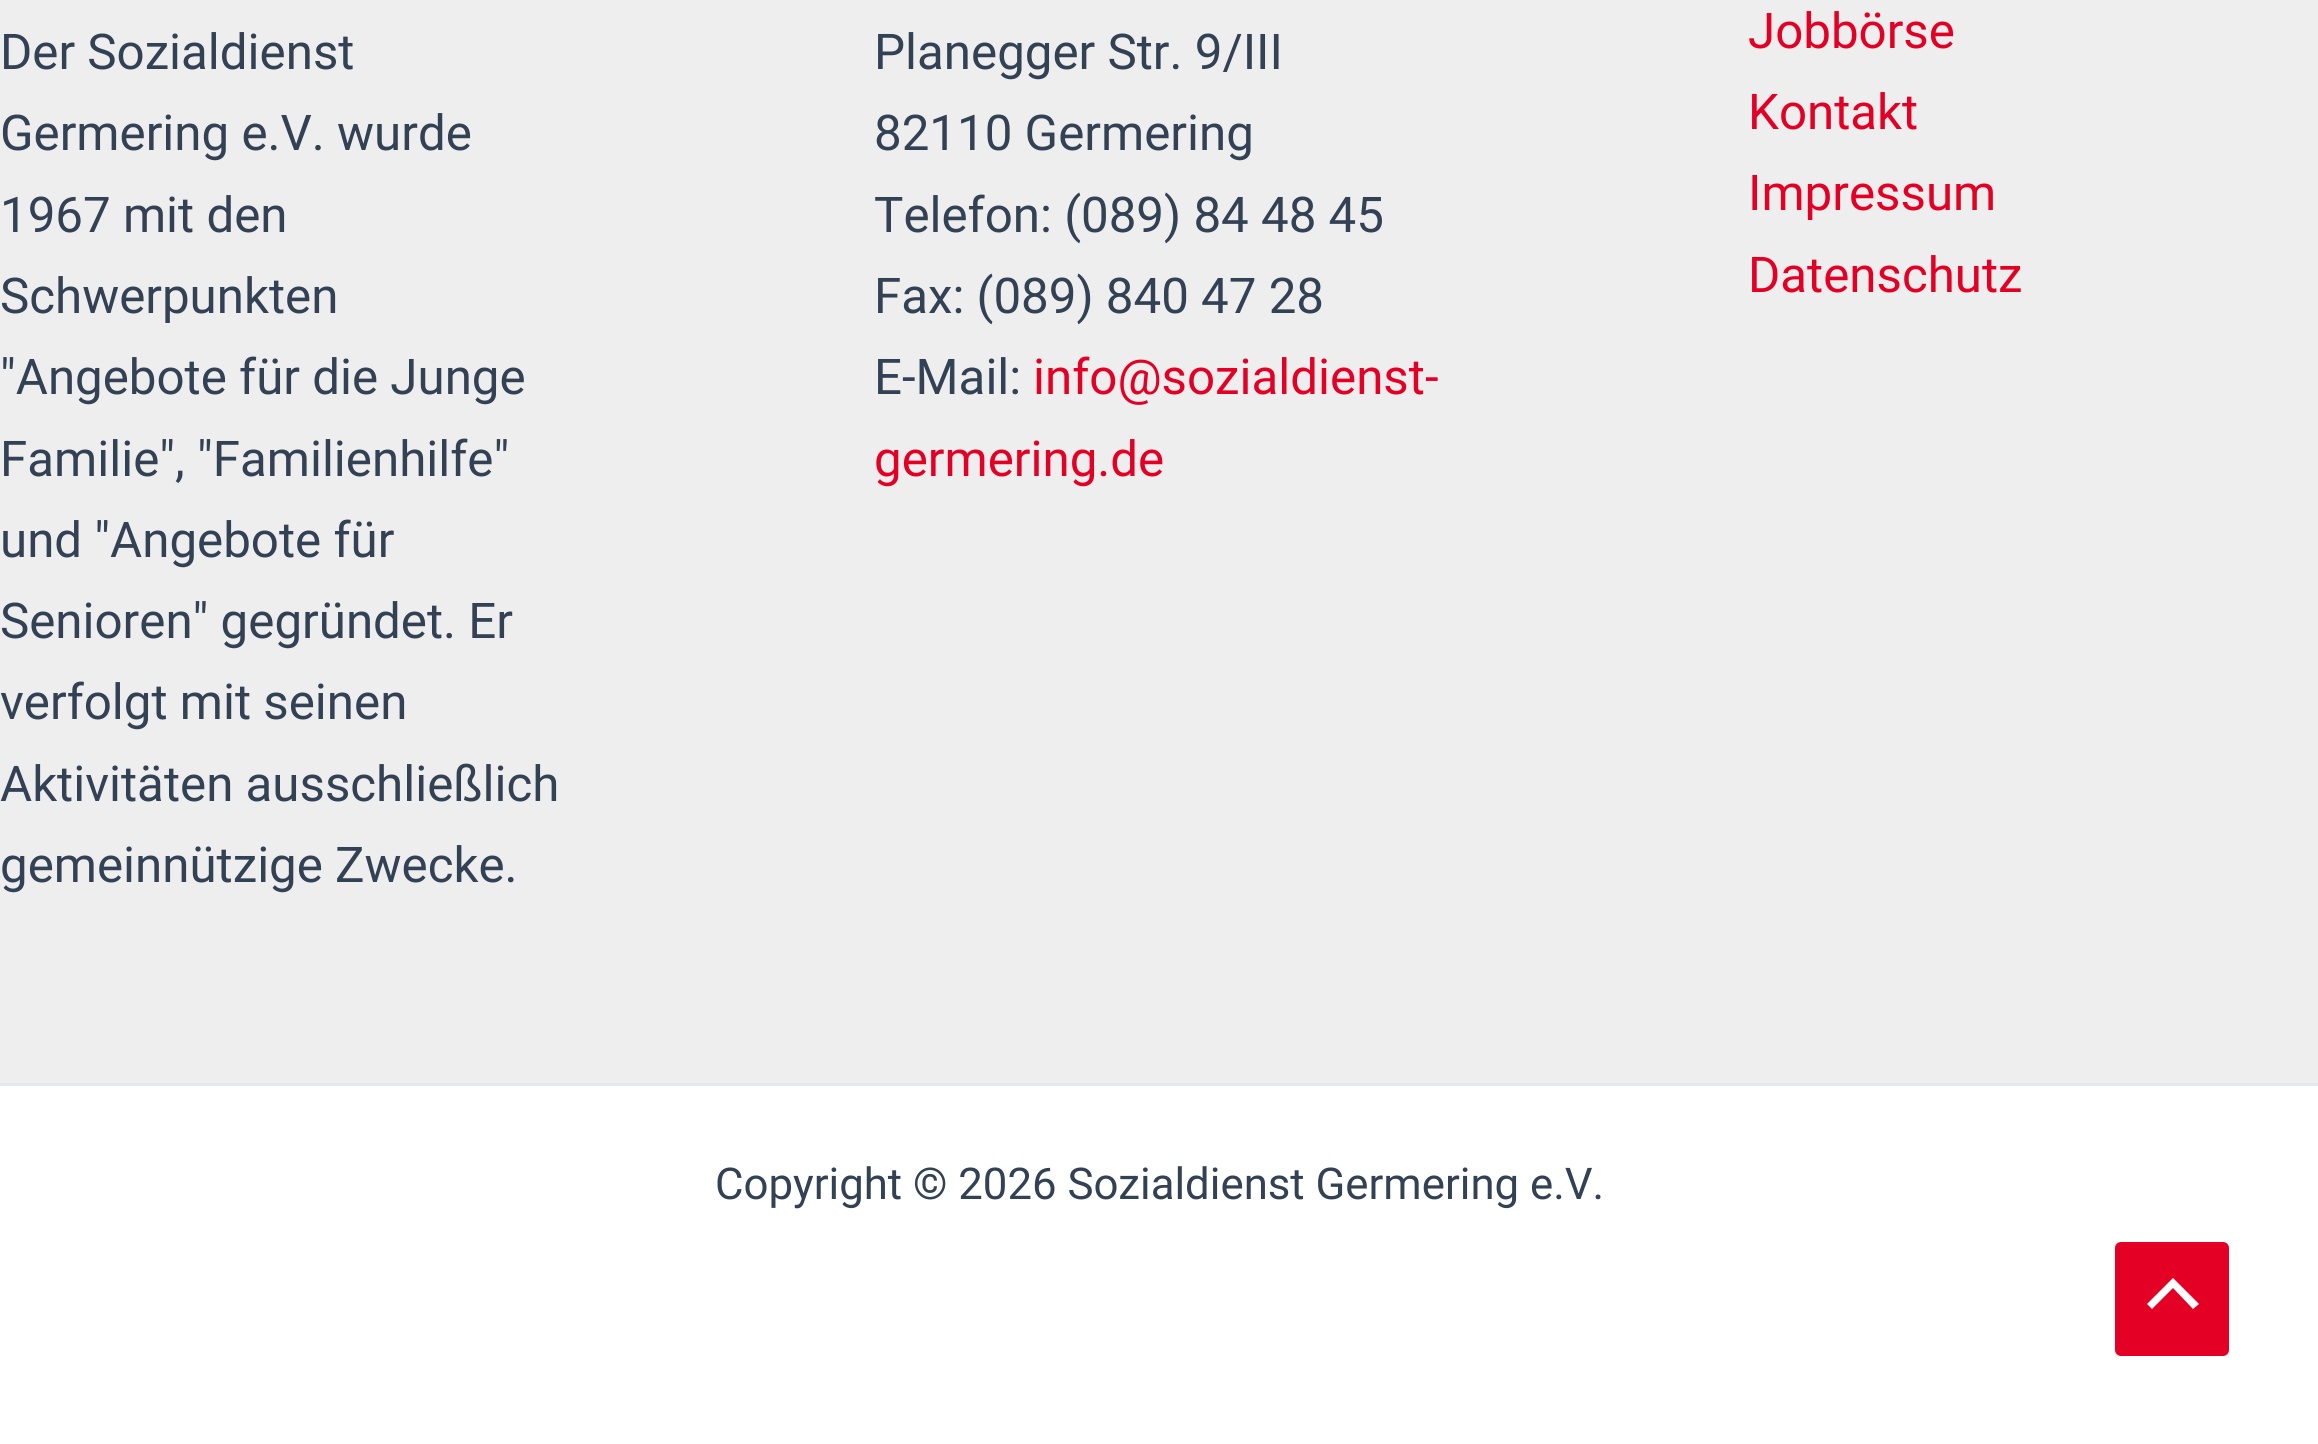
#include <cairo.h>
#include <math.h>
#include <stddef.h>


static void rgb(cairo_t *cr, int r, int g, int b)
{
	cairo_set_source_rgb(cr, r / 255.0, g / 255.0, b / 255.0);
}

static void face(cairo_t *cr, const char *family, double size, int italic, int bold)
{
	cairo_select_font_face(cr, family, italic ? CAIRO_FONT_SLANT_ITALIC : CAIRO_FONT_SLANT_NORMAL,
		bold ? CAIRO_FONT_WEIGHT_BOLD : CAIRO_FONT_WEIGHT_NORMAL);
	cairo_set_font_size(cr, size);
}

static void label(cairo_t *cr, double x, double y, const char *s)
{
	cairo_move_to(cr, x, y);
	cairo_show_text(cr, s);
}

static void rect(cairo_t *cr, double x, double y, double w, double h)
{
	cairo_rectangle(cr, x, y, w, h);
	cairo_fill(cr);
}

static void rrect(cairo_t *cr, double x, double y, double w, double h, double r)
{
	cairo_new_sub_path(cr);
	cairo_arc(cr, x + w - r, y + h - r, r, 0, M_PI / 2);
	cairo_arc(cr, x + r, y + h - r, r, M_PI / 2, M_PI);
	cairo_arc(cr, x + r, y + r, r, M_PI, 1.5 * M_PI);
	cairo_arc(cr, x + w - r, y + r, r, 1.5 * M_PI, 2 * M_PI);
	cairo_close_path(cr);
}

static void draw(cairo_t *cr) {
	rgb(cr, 238, 238, 238);
	cairo_paint(cr);
	face(cr, "Roboto", 49.25, 0, 0);
	rgb(cr, 51, 65, 85);
	label(cr, 0, 69, "Der Sozialdienst");
	label(cr, 0, 150, "Germering e.V. wurde");
	label(cr, 0, 232, "1967 mit den");
	label(cr, 0, 313, "Schwerpunkten");
	label(cr, 0, 394, "\"Angebote für die Junge");
	label(cr, 0, 476, "Familie\", \"Familienhilfe\"");
	label(cr, 0, 557, "und \"Angebote für");
	label(cr, 0, 638, "Senioren\" gegründet. Er");
	label(cr, 0, 719, "verfolgt mit seinen");
	label(cr, 0, 801, "Aktivitäten ausschließlich");
	label(cr, 0, 882, "gemeinnützige Zwecke.");
	label(cr, 874, 69, "Planegger Str. 9/III");
	label(cr, 874, 150, "82110 Germering");
	label(cr, 874, 232, "Telefon: (089) 84 48 45");
	label(cr, 874, 313, "Fax: (089) 840 47 28");
	label(cr, 874, 394, "E-Mail:");
	rgb(cr, 228, 0, 36);
	label(cr, 1033, 394, "info@sozialdienst-");
	label(cr, 874, 476, "germering.de");
	label(cr, 1748, 48, "Jobbörse");
	label(cr, 1748, 129, "Kontakt");
	label(cr, 1748, 210, "Impressum");
	label(cr, 1748, 292, "Datenschutz");
	rgb(cr, 255, 255, 255);
	rect(cr, 0, 1086, 2318, 358);
	rgb(cr, 226, 232, 240);
	rect(cr, 0, 1083, 2318, 3);
	face(cr, "Roboto", 43.75, 0, 0);
	rgb(cr, 51, 65, 85);
	label(cr, 715, 1199, "Copyright © 2026 Sozialdienst Germering e.V.");
	rgb(cr, 228, 0, 36);
	rrect(cr, 2115, 1242, 114, 114, 6);
	cairo_fill(cr);
	rgb(cr, 255, 255, 255);
	cairo_new_path(cr);
	cairo_move_to(cr, 2199, 1304);
	cairo_line_to(cr, 2173, 1278);
	cairo_line_to(cr, 2147, 1304);
	cairo_line_to(cr, 2152, 1309);
	cairo_line_to(cr, 2173, 1288);
	cairo_line_to(cr, 2193, 1309);
	cairo_close_path(cr);
	cairo_fill(cr);
}

int main(void) {
	cairo_surface_t *surface = cairo_image_surface_create(CAIRO_FORMAT_RGB24, 2318, 1444);
	cairo_t *cr = cairo_create(surface);
	cairo_font_options_t *options = cairo_font_options_create();
	cairo_font_options_set_hint_metrics(options, CAIRO_HINT_METRICS_OFF);
	cairo_font_options_set_hint_style(options, CAIRO_HINT_STYLE_NONE);
	cairo_set_font_options(cr, options);
	cairo_set_miter_limit(cr, 4);
	draw(cr);
	cairo_surface_write_to_png(surface, "render.png");
	cairo_font_options_destroy(options);
	cairo_destroy(cr);
	cairo_surface_destroy(surface);
	return 0;
}
